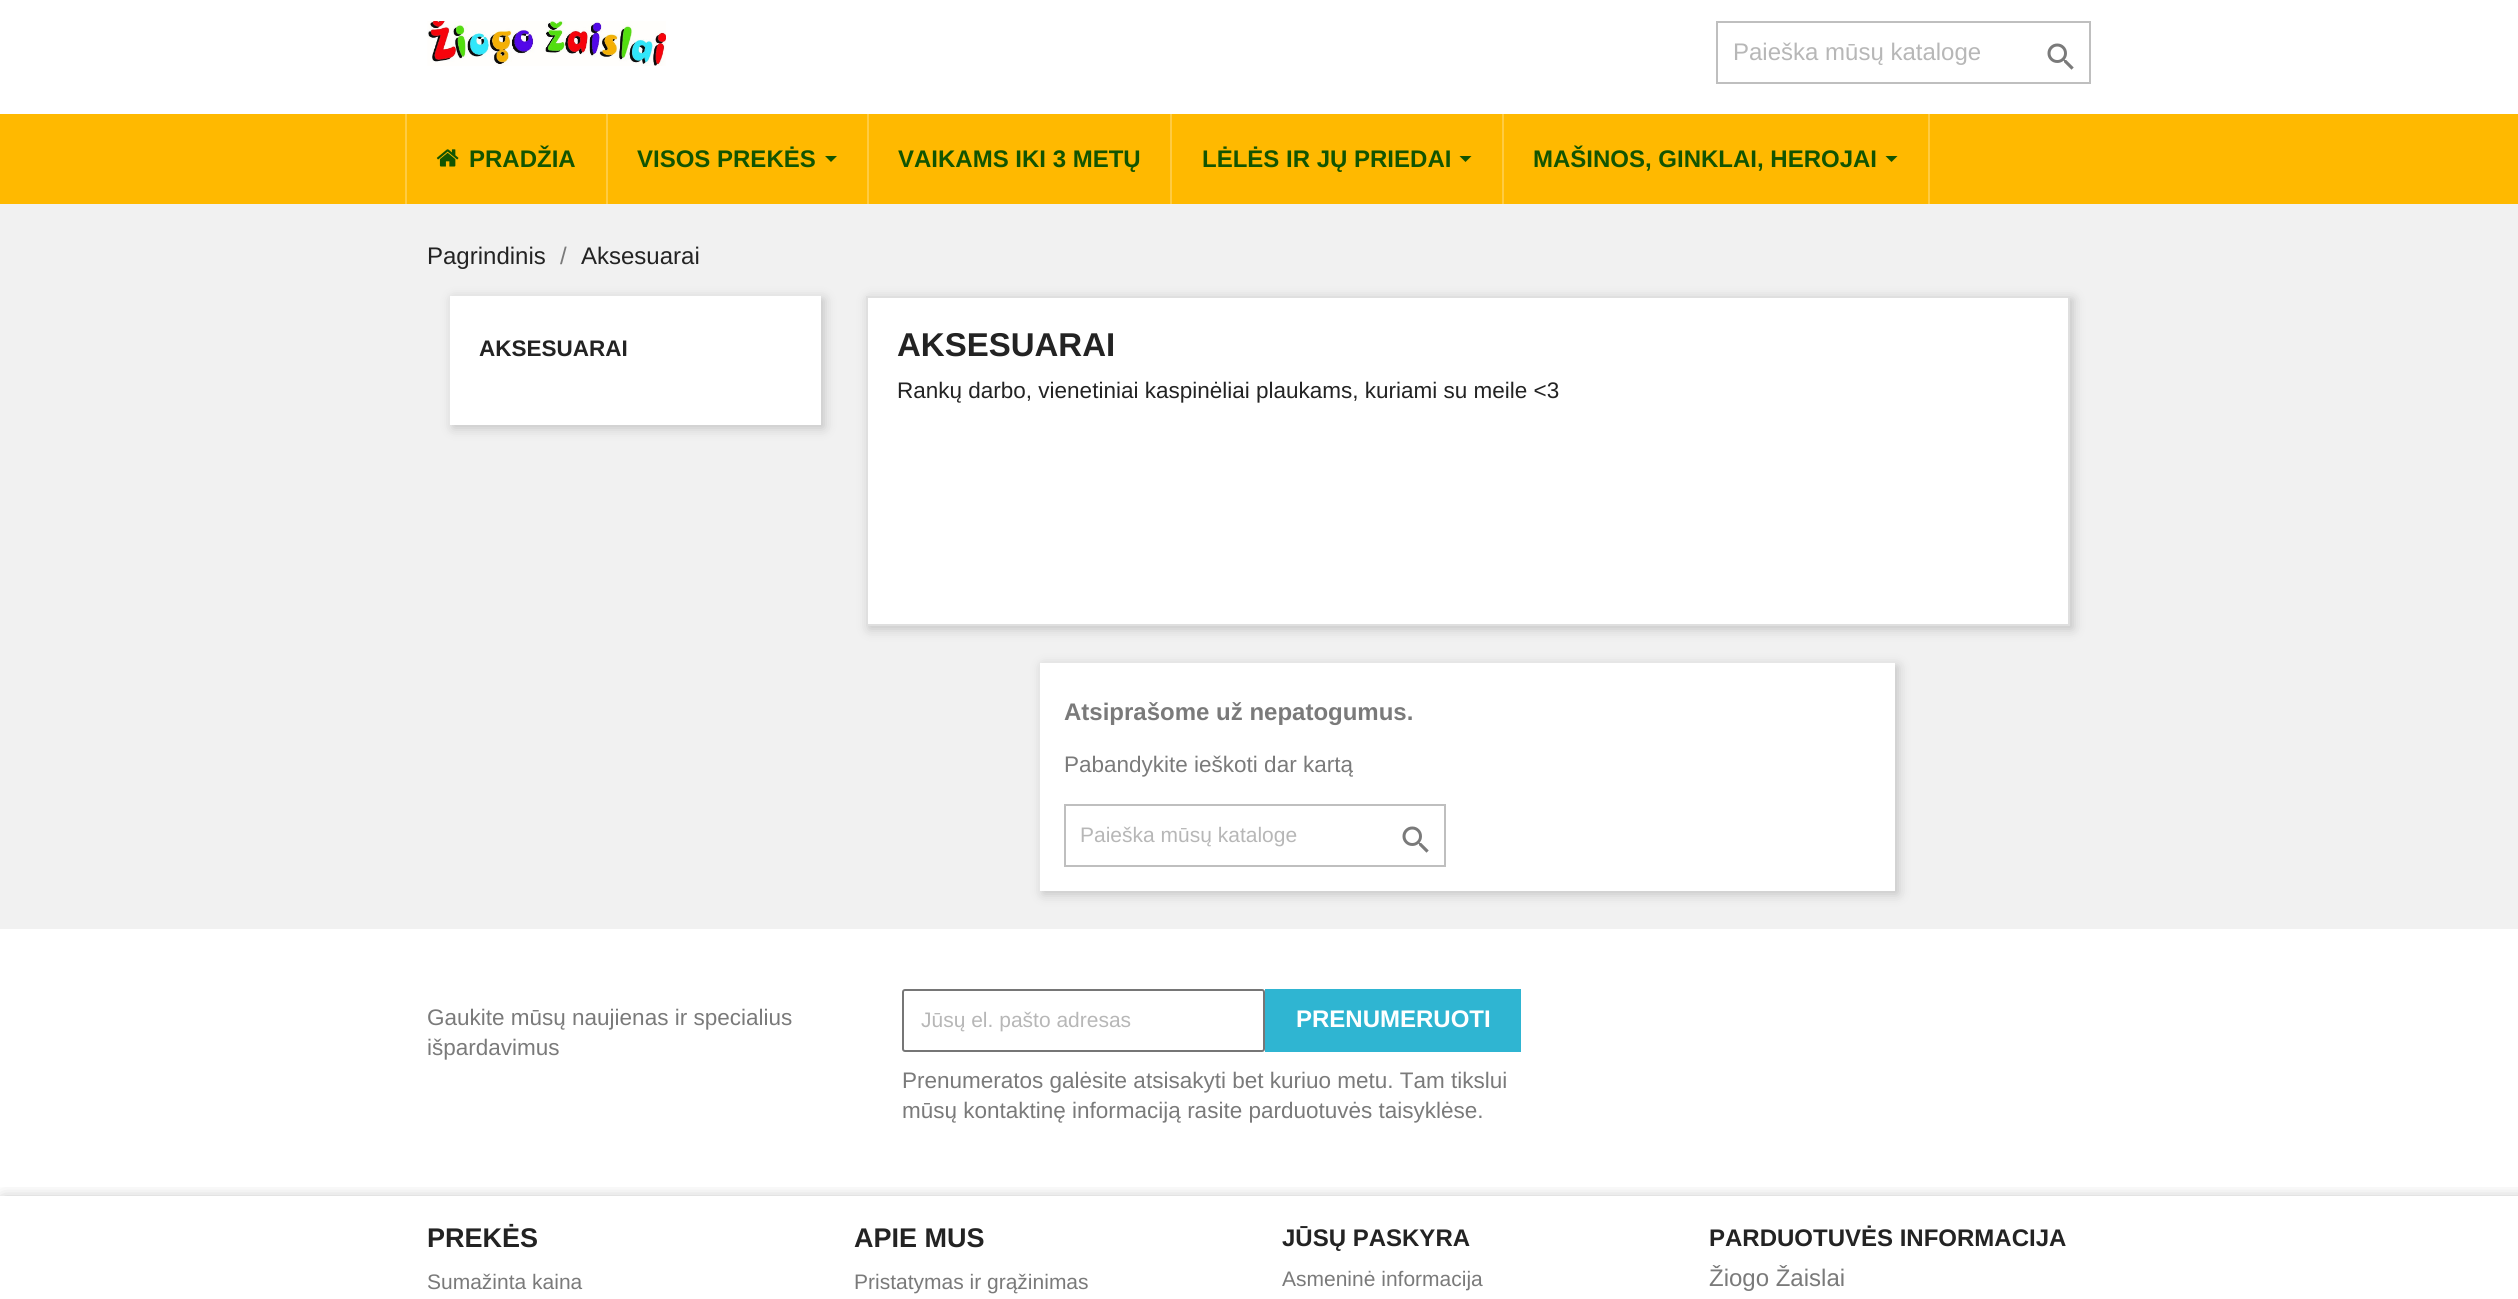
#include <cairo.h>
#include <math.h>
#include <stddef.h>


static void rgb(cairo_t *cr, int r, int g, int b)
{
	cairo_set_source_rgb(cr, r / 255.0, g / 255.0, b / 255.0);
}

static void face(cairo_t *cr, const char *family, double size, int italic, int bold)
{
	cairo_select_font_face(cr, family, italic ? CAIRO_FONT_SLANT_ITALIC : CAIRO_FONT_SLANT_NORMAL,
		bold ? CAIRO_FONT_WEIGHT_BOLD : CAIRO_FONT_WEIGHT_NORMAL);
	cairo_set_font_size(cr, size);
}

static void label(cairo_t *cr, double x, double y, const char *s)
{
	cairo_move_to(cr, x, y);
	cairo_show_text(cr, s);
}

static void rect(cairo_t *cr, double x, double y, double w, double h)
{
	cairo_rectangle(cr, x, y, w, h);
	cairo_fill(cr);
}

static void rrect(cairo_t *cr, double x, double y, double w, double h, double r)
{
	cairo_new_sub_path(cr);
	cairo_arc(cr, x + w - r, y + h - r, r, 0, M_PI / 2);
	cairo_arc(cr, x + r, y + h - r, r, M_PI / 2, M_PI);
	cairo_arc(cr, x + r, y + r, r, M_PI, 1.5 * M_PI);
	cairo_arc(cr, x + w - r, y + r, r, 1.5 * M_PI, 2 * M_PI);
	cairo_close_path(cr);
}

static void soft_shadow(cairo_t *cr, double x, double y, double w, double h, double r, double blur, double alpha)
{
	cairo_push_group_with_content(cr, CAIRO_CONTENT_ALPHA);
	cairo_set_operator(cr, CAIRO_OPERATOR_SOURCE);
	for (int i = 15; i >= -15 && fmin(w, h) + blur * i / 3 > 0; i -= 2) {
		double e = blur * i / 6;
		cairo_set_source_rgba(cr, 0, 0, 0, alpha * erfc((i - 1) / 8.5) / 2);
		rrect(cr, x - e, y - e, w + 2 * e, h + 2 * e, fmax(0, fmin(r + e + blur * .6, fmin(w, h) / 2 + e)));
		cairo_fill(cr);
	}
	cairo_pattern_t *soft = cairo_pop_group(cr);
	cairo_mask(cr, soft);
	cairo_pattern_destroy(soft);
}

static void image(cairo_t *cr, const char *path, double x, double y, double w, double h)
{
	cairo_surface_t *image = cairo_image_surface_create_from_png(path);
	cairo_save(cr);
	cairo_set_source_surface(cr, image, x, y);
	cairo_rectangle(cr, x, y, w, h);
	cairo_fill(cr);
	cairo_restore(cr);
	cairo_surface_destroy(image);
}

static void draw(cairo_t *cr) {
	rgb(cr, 255, 255, 255);
	cairo_paint(cr);
	image(cr, "image0.png", 427, 21, 239, 45);
	cairo_rectangle(cr, 1717, 22, 373, 61);
	rgb(cr, 191, 191, 191);
	cairo_stroke(cr);
	face(cr, "Liberation Sans", 24, 0, 0);
	rgb(cr, 183, 183, 183);
	label(cr, 1733, 60, "Paieška mūsų kataloge");
	image(cr, "image1.png", 2047, 43, 27, 27);
	rgb(cr, 255, 185, 0);
	rect(cr, 0, 114, 2518, 90);
	rgb(cr, 255, 203, 66);
	rect(cr, 606, 114, 2, 90);
	rect(cr, 405, 114, 2, 90);
	image(cr, "image2.png", 436, 149, 23, 18);
	face(cr, "Liberation Sans", 24, 0, 1);
	rgb(cr, 18, 84, 0);
	label(cr, 469, 167, "PRADŽIA");
	rgb(cr, 255, 203, 66);
	rect(cr, 867, 114, 2, 90);
	rgb(cr, 18, 84, 0);
	label(cr, 637, 167, "VISOS PREKĖS");
	cairo_new_path(cr);
	cairo_move_to(cr, 825, 156);
	cairo_line_to(cr, 837, 156);
	cairo_line_to(cr, 831, 162);
	cairo_close_path(cr);
	cairo_fill(cr);
	rgb(cr, 255, 203, 66);
	rect(cr, 1170, 114, 2, 90);
	rgb(cr, 18, 84, 0);
	label(cr, 898, 167, "VAIKAMS IKI 3 METŲ");
	rgb(cr, 255, 203, 66);
	rect(cr, 1502, 114, 2, 90);
	rgb(cr, 18, 84, 0);
	label(cr, 1202, 167, "LĖLĖS IR JŲ PRIEDAI");
	cairo_new_path(cr);
	cairo_move_to(cr, 1459.5, 156);
	cairo_line_to(cr, 1471.5, 156);
	cairo_line_to(cr, 1465.5, 162);
	cairo_close_path(cr);
	cairo_fill(cr);
	rgb(cr, 255, 203, 66);
	rect(cr, 1928, 114, 2, 90);
	rgb(cr, 18, 84, 0);
	label(cr, 1533, 167, "MAŠINOS, GINKLAI, HEROJAI");
	cairo_new_path(cr);
	cairo_move_to(cr, 1885.5, 156);
	cairo_line_to(cr, 1897.5, 156);
	cairo_line_to(cr, 1891.5, 162);
	cairo_close_path(cr);
	cairo_fill(cr);
	rgb(cr, 241, 241, 241);
	rect(cr, 0, 204, 2518, 725);
	face(cr, "Liberation Sans", 24, 0, 0);
	rgb(cr, 35, 35, 35);
	label(cr, 427, 264, "Pagrindinis");
	rgb(cr, 122, 122, 122);
	label(cr, 560, 264, "/");
	rgb(cr, 35, 35, 35);
	label(cr, 581, 264, "Aksesuarai");
	rgb(cr, 0, 0, 0);
	soft_shadow(cr, 453, 299, 371, 129, 0, 6, 0.2);
	rgb(cr, 255, 255, 255);
	rect(cr, 450, 296, 371, 129);
	face(cr, "Liberation Sans", 22.5, 0, 1);
	rgb(cr, 35, 35, 35);
	label(cr, 479, 356, "AKSESUARAI");
	rgb(cr, 0, 0, 0);
	soft_shadow(cr, 869, 299, 1204, 330, 0, 6, 0.2);
	rgb(cr, 255, 255, 255);
	cairo_rectangle(cr, 867, 297, 1202, 328);
	cairo_fill_preserve(cr);
	rgb(cr, 223, 223, 223);
	cairo_stroke(cr);
	face(cr, "Liberation Sans", 33, 0, 1);
	rgb(cr, 35, 35, 35);
	label(cr, 897, 356, "AKSESUARAI");
	face(cr, "Liberation Sans", 22.5, 0, 0);
	label(cr, 897, 398, "Rankų darbo, vienetiniai kaspinėliai plaukams, kuriami su meile <3");
	rgb(cr, 0, 0, 0);
	soft_shadow(cr, 1043, 666, 855, 228, 0, 6, 0.2);
	rgb(cr, 255, 255, 255);
	rect(cr, 1040, 663, 855, 228);
	face(cr, "Liberation Sans", 24, 0, 1);
	rgb(cr, 122, 122, 122);
	label(cr, 1064, 720, "Atsiprašome už nepatogumus.");
	face(cr, "Liberation Sans", 22.5, 0, 0);
	label(cr, 1064, 772, "Pabandykite ieškoti dar kartą");
	cairo_rectangle(cr, 1065, 805, 380, 61);
	rgb(cr, 191, 191, 191);
	cairo_stroke(cr);
	face(cr, "Liberation Sans", 21, 0, 0);
	rgb(cr, 183, 183, 183);
	label(cr, 1080, 842, "Paieška mūsų kataloge");
	image(cr, "image1.png", 1402, 826, 27, 27);
	face(cr, "Liberation Sans", 22.5, 0, 0);
	rgb(cr, 122, 122, 122);
	label(cr, 427, 1025, "Gaukite mūsų naujienas ir specialius");
	label(cr, 427, 1055, "išpardavimus");
	rrect(cr, 903, 990, 361, 61, 2);
	rgb(cr, 118, 118, 118);
	cairo_stroke(cr);
	face(cr, "Liberation Sans", 21, 0, 0);
	rgb(cr, 183, 183, 183);
	label(cr, 921, 1027, "Jūsų el. pašto adresas");
	rgb(cr, 47, 181, 210);
	rect(cr, 1265, 989, 256, 63);
	face(cr, "Liberation Sans", 24, 0, 1);
	rgb(cr, 255, 255, 255);
	label(cr, 1296, 1027, "PRENUMERUOTI");
	face(cr, "Liberation Sans", 22.5, 0, 0);
	rgb(cr, 122, 122, 122);
	label(cr, 902, 1088, "Prenumeratos galėsite atsisakyti bet kuriuo metu. Tam tikslui");
	label(cr, 902, 1118, "mūsų kontaktinę informaciją rasite parduotuvės taisyklėse.");
	cairo_save(cr);
	cairo_rectangle(cr, 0, 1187, 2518, 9);
	cairo_clip(cr);
	rgb(cr, 0, 0, 0);
	soft_shadow(cr, 3, 1199, 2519, 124, 0, 8, 0.3);
	cairo_restore(cr);
	face(cr, "Liberation Sans", 27, 0, 1);
	rgb(cr, 35, 35, 35);
	label(cr, 427, 1247, "PREKĖS");
	face(cr, "Liberation Sans", 21, 0, 0);
	rgb(cr, 122, 122, 122);
	label(cr, 427, 1289, "Sumažinta kaina");
	face(cr, "Liberation Sans", 27, 0, 1);
	rgb(cr, 35, 35, 35);
	label(cr, 854, 1247, "APIE MUS");
	face(cr, "Liberation Sans", 21, 0, 0);
	rgb(cr, 122, 122, 122);
	label(cr, 854, 1289, "Pristatymas ir grąžinimas");
	face(cr, "Liberation Sans", 24, 0, 1);
	rgb(cr, 35, 35, 35);
	label(cr, 1282, 1246, "JŪSŲ PASKYRA");
	face(cr, "Liberation Sans", 21, 0, 0);
	rgb(cr, 122, 122, 122);
	label(cr, 1282, 1286, "Asmeninė informacija");
	face(cr, "Liberation Sans", 24, 0, 1);
	rgb(cr, 35, 35, 35);
	label(cr, 1709, 1246, "PARDUOTUVĖS INFORMACIJA");
	face(cr, "Liberation Sans", 24, 0, 0);
	rgb(cr, 122, 122, 122);
	label(cr, 1709, 1286, "Žiogo Žaislai");
}

int main(void) {
	cairo_surface_t *surface = cairo_image_surface_create(CAIRO_FORMAT_RGB24, 2518, 1299);
	cairo_t *cr = cairo_create(surface);
	cairo_font_options_t *options = cairo_font_options_create();
	cairo_font_options_set_hint_metrics(options, CAIRO_HINT_METRICS_OFF);
	cairo_font_options_set_hint_style(options, CAIRO_HINT_STYLE_NONE);
	cairo_set_font_options(cr, options);
	cairo_set_miter_limit(cr, 4);
	draw(cr);
	cairo_surface_write_to_png(surface, "render.png");
	cairo_font_options_destroy(options);
	cairo_destroy(cr);
	cairo_surface_destroy(surface);
	return 0;
}
